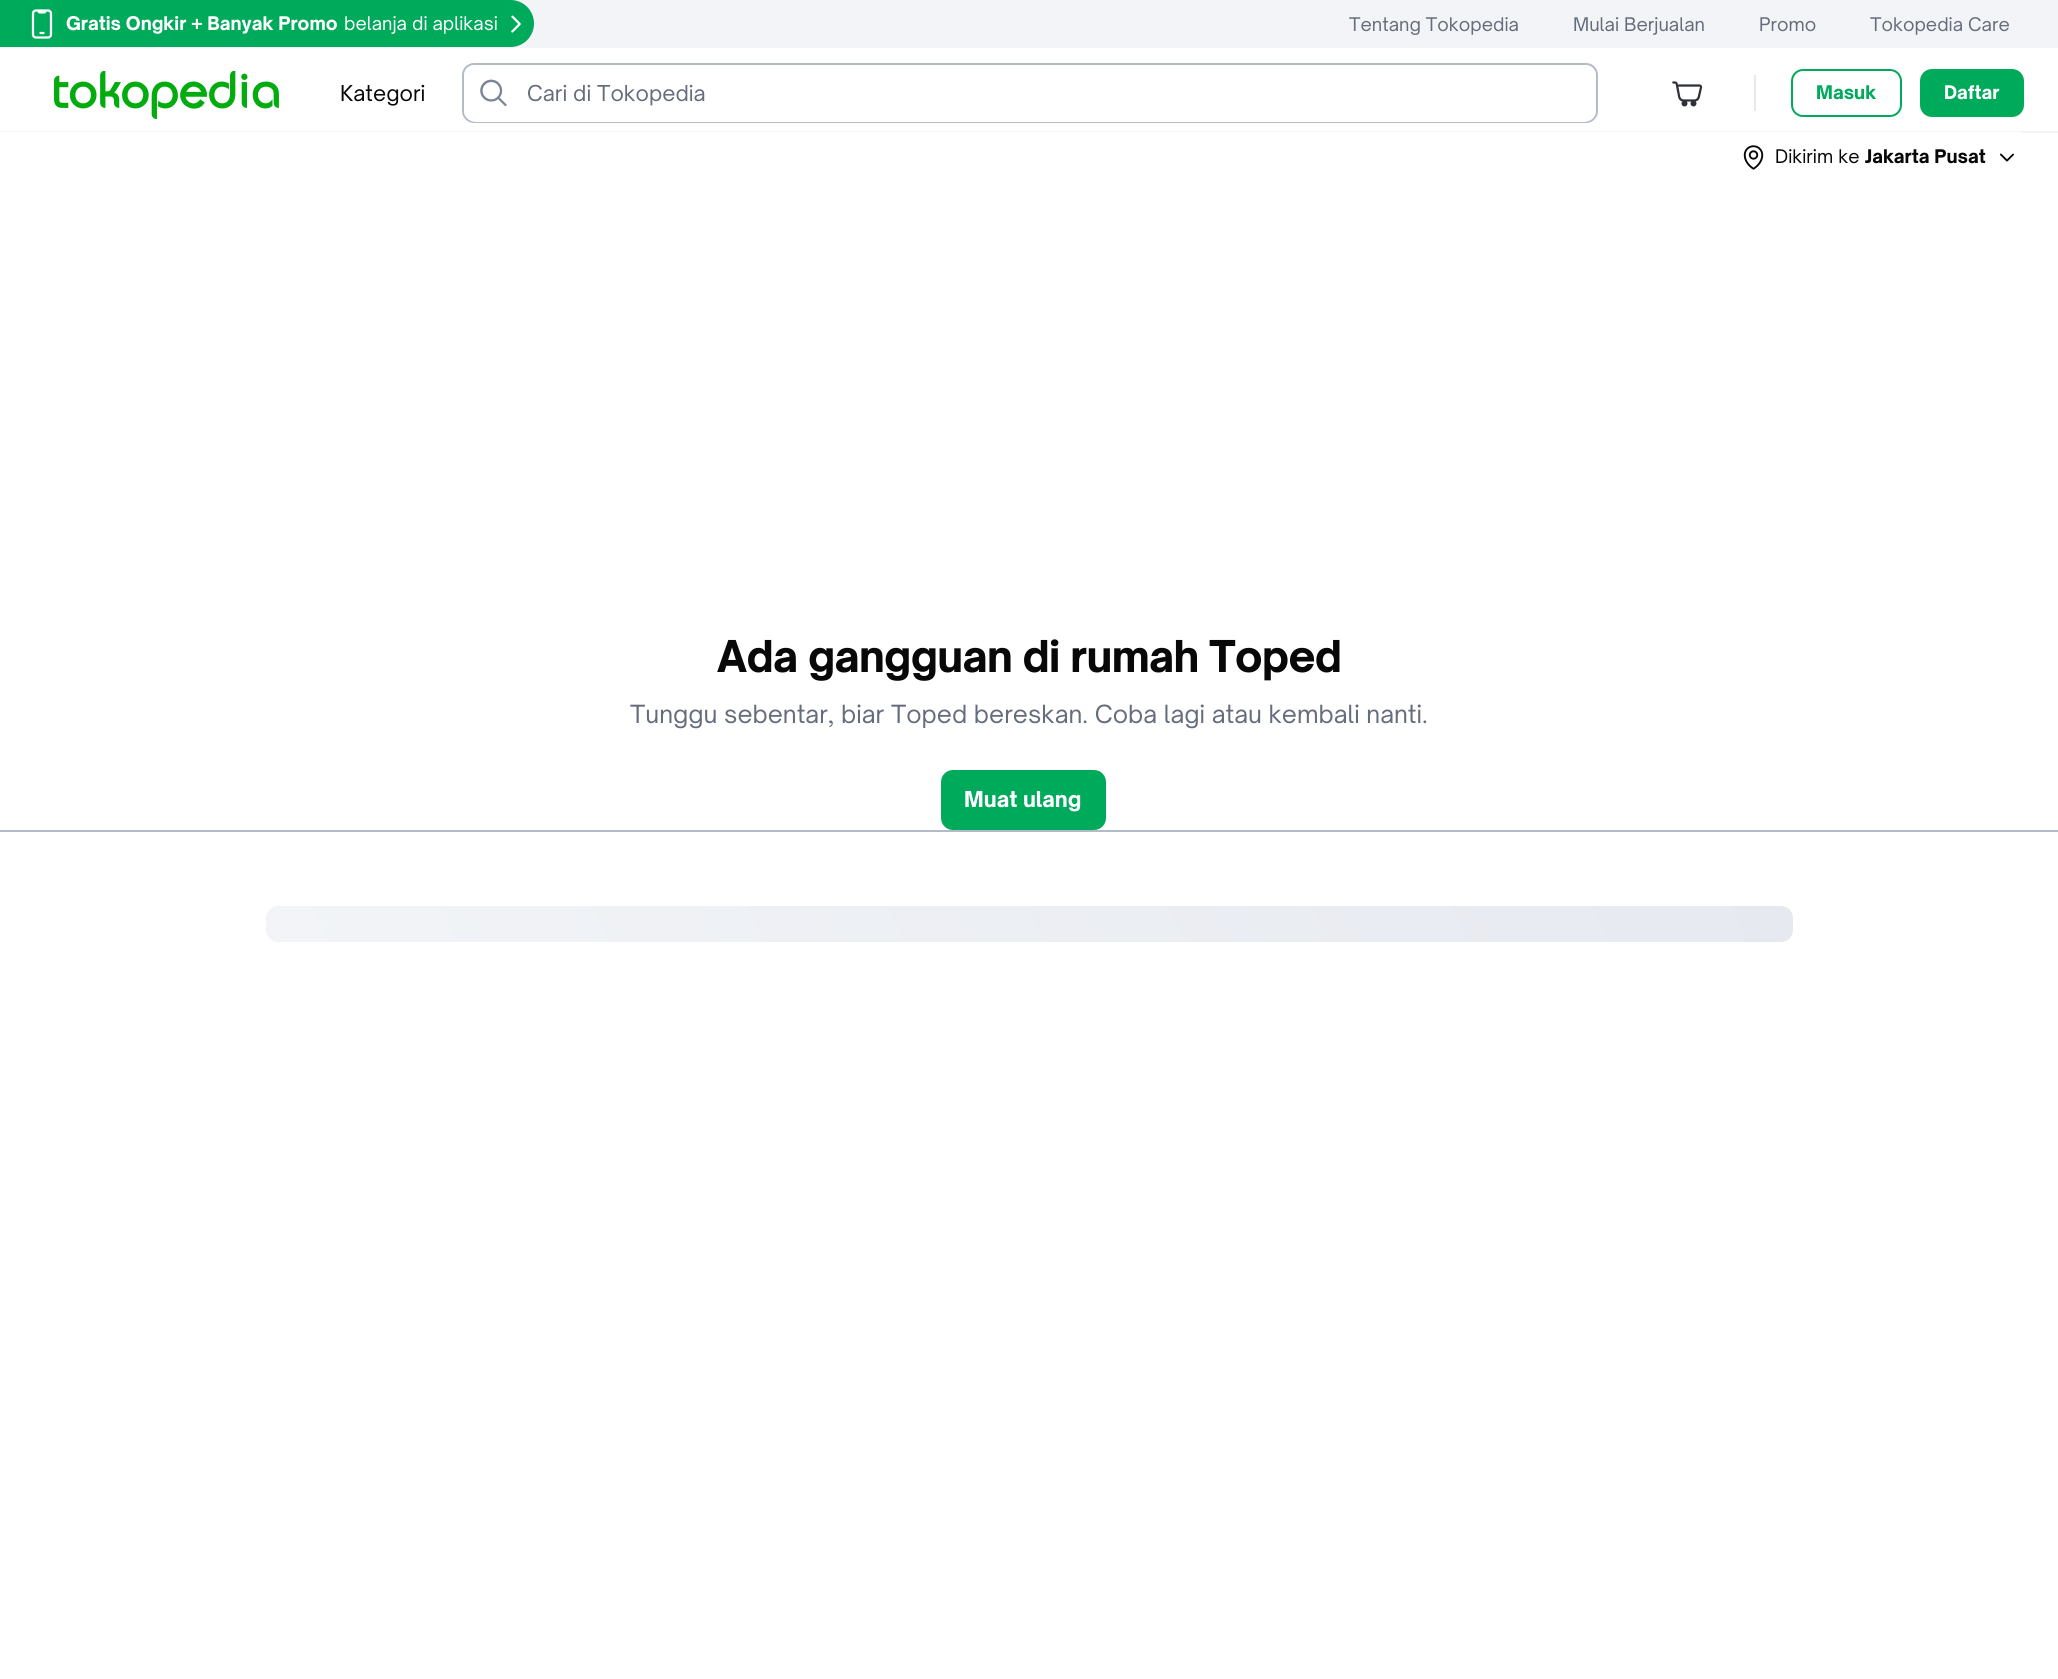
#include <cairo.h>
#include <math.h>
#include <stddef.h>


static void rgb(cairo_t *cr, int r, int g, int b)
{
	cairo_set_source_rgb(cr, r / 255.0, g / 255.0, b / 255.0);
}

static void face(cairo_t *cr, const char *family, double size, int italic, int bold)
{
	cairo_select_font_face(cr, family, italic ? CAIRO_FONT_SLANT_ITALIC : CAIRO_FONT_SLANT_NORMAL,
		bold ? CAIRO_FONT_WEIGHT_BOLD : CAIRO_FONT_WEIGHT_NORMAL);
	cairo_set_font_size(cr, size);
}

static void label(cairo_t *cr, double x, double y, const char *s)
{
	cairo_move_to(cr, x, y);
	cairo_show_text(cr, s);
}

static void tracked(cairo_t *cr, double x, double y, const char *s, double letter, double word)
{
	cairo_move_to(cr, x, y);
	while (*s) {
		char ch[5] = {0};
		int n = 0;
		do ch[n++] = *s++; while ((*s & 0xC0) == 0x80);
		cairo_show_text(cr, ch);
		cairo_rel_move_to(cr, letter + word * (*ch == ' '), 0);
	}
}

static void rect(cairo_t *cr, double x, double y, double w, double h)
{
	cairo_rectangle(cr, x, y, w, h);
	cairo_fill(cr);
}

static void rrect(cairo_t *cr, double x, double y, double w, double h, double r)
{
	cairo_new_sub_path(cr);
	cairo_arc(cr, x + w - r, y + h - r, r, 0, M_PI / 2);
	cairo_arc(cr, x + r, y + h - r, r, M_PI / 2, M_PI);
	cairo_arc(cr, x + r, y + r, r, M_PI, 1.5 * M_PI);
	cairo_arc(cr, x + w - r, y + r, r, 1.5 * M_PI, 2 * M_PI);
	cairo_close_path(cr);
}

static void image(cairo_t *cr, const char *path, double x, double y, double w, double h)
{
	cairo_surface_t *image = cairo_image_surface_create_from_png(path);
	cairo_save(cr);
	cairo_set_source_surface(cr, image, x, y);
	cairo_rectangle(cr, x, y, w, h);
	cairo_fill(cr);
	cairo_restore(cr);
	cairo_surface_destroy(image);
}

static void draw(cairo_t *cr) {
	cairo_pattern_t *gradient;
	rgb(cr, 255, 255, 255);
	cairo_paint(cr);
	rgb(cr, 242, 244, 247);
	rect(cr, 0, 131, 2058, 2);
	rect(cr, 0, 0, 2058, 48);
	rgb(cr, 0, 170, 91);
	cairo_new_path(cr);
	cairo_move_to(cr, 0, 0);
	cairo_line_to(cr, 510.5, 0);
	cairo_curve_to(cr, 523.5, 0, 534, 10.5, 534, 23.5);
	cairo_curve_to(cr, 534, 36.5, 523.5, 47, 510.5, 47);
	cairo_line_to(cr, 0, 47);
	cairo_close_path(cr);
	cairo_fill(cr);
	image(cr, "image0.png", 31, 9, 22, 30);
	face(cr, "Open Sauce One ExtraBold", 18, 0, 0);
	rgb(cr, 255, 255, 255);
	label(cr, 66, 30, "Gratis Ongkir + Banyak Promo");
	face(cr, "Open Sauce One", 18, 0, 0);
	label(cr, 344, 30, "belanja di aplikasi");
	image(cr, "image1.png", 511, 15, 10, 18);
	rgb(cr, 101, 108, 123);
	label(cr, 1349, 31, "Tentang Tokopedia");
	label(cr, 1573, 31, "Mulai Berjualan");
	label(cr, 1759, 31, "Promo");
	label(cr, 1870, 31, "Tokopedia Care");
	image(cr, "image2.png", 54, 71, 225, 49);
	face(cr, "Open Sauce One", 21, 0, 0);
	rgb(cr, 8, 8, 8);
	label(cr, 340, 101, "Kategori");
	rrect(cr, 463, 64, 1134, 58, 11);
	rgb(cr, 179, 187, 201);
	cairo_stroke(cr);
	rgb(cr, 255, 255, 255);
	rrect(cr, 464, 65, 1132, 57, 12);
	cairo_fill(cr);
	image(cr, "image3.png", 480, 79, 27, 28);
	rgb(cr, 101, 108, 123);
	label(cr, 527, 101, "Cari di Tokopedia");
	image(cr, "image4.png", 1672, 81, 31, 26);
	rgb(cr, 230, 233, 240);
	rect(cr, 1754, 75, 2, 36);
	rrect(cr, 1792, 70, 109, 46, 11);
	rgb(cr, 0, 170, 91);
	cairo_stroke(cr);
	face(cr, "Open Sauce One ExtraBold", 18, 0, 0);
	label(cr, 1816, 99, "Masuk");
	rrect(cr, 1920, 69, 104, 48, 12);
	cairo_fill(cr);
	rgb(cr, 255, 255, 255);
	label(cr, 1944, 99, "Daftar");
	rect(cr, 0, 132, 2022, 1);
	image(cr, "image5.png", 1743, 145, 21, 25);
	face(cr, "Open Sauce One", 18, 0, 0);
	rgb(cr, 8, 8, 8);
	label(cr, 1775, 163, "Dikirim ke");
	face(cr, "Open Sauce One ExtraBold", 18, 0, 0);
	label(cr, 1865, 163, "Jakarta Pusat");
	image(cr, "image6.png", 2000, 153, 14, 9);
	face(cr, "Open Sauce One ExtraBold", 42, 0, 0);
	tracked(cr, 717, 672, "Ada gangguan di rumah Toped", -0.6, 0);
	face(cr, "Open Sauce One", 24, 0, 0);
	rgb(cr, 101, 108, 123);
	label(cr, 630, 723, "Tunggu sebentar, biar Toped bereskan. Coba lagi atau kembali nanti.");
	rgb(cr, 0, 170, 91);
	rrect(cr, 941, 770, 165, 60, 12);
	cairo_fill(cr);
	face(cr, "Open Sauce One ExtraBold", 21, 0, 0);
	rgb(cr, 255, 255, 255);
	label(cr, 964, 807, "Muat ulang");
	rgb(cr, 179, 187, 201);
	rect(cr, 0, 830, 2058, 2);
	gradient = cairo_pattern_create_linear(395, 1220, 1663, 628);
	cairo_pattern_add_color_stop_rgba(gradient, 0, 0.949, 0.957, 0.969, 1);
	cairo_pattern_add_color_stop_rgba(gradient, 1, 0.902, 0.914, 0.941, 1);
	cairo_set_source(cr, gradient);
	cairo_pattern_destroy(gradient);
	rrect(cr, 266, 906, 1527, 36, 12);
	cairo_fill(cr);
}

int main(void) {
	cairo_surface_t *surface = cairo_image_surface_create(CAIRO_FORMAT_RGB24, 2058, 1679);
	cairo_t *cr = cairo_create(surface);
	cairo_font_options_t *options = cairo_font_options_create();
	cairo_font_options_set_hint_metrics(options, CAIRO_HINT_METRICS_OFF);
	cairo_font_options_set_hint_style(options, CAIRO_HINT_STYLE_NONE);
	cairo_set_font_options(cr, options);
	cairo_set_miter_limit(cr, 4);
	draw(cr);
	cairo_surface_write_to_png(surface, "render.png");
	cairo_font_options_destroy(options);
	cairo_destroy(cr);
	cairo_surface_destroy(surface);
	return 0;
}
